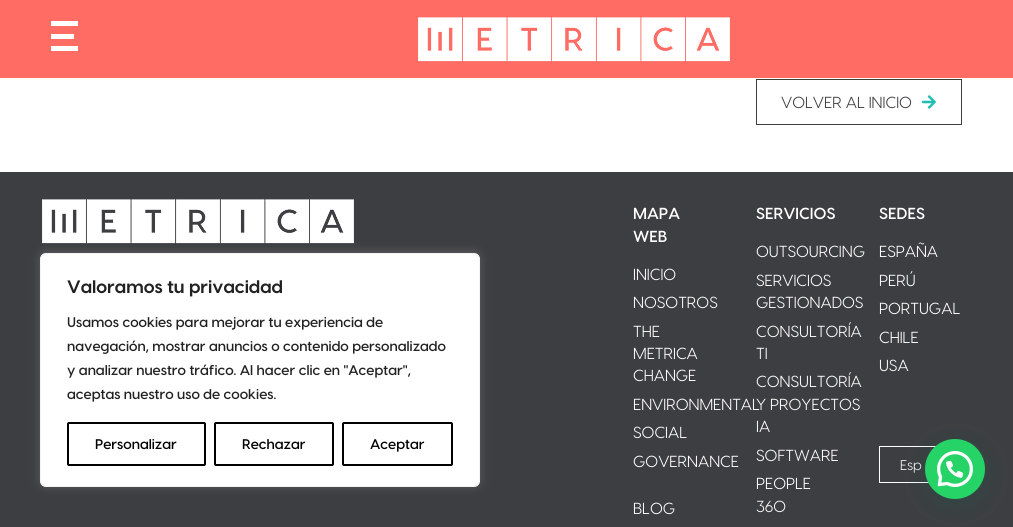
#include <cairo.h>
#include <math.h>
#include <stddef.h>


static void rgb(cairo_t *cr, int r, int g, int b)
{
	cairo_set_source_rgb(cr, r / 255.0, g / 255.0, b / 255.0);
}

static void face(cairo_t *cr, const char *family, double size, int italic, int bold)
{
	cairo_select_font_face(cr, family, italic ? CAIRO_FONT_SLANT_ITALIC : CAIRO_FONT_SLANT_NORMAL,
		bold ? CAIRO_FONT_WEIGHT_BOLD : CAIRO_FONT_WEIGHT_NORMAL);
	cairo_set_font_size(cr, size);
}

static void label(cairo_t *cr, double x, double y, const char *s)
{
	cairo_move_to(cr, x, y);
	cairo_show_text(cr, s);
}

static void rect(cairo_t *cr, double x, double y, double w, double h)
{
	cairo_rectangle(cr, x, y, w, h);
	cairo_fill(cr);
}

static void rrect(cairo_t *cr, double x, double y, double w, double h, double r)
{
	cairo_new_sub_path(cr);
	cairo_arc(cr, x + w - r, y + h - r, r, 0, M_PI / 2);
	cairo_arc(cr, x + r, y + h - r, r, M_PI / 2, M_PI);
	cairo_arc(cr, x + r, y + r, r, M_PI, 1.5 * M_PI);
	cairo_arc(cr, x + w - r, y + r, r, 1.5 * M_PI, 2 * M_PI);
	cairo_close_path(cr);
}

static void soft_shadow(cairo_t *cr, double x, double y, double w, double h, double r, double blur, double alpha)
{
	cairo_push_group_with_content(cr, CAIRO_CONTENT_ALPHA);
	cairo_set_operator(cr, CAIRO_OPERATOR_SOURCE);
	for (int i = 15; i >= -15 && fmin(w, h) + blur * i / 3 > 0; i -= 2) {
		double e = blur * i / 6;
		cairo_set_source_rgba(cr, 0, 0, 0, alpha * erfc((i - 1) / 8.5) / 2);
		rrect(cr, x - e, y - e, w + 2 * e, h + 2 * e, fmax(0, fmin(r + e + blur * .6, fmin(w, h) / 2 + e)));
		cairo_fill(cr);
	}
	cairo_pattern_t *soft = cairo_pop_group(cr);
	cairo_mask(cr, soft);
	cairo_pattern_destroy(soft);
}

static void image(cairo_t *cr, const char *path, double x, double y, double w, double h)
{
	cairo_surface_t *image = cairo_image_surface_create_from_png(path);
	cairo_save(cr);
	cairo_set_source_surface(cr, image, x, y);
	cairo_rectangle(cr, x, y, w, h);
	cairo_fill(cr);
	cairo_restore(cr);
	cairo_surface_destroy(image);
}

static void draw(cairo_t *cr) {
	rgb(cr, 255, 255, 255);
	cairo_paint(cr);
	rgb(cr, 255, 108, 100);
	rect(cr, 0, 0, 1013, 78);
	rgb(cr, 255, 255, 255);
	rect(cr, 51, 21, 27, 5);
	rect(cr, 51, 46, 27, 5);
	rect(cr, 51, 34, 23, 5);
	image(cr, "image0.png", 418, 17, 312, 45);
	cairo_rectangle(cr, 756.5, 79.5, 205, 45);
	rgb(cr, 61, 62, 65);
	cairo_set_line_width(cr, 1);
	cairo_stroke(cr);
	face(cr, "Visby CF", 16, 0, 0);
	label(cr, 781, 108, "VOLVER AL INICIO");
	image(cr, "image1.png", 922, 95, 14, 14);
	rect(cr, 0, 172, 1013, 355);
	image(cr, "image2.png", 42, 198, 313, 46);
	rgb(cr, 172, 171, 171);
	soft_shadow(cr, 40, 252, 440, 234, 6, 5, 0.3);
	rgb(cr, 255, 255, 255);
	rrect(cr, 40.5, 253.5, 439, 233, 5.5);
	cairo_fill_preserve(cr);
	rgb(cr, 244, 244, 244);
	cairo_stroke(cr);
	face(cr, "Visby CF", 18, 0, 1);
	rgb(cr, 33, 33, 33);
	label(cr, 67, 293, "Valoramos tu privacidad");
	face(cr, "Visby CF SemiBold", 14, 0, 0);
	label(cr, 67, 327, "Usamos cookies para mejorar tu experiencia de");
	label(cr, 67, 351, "navegación, mostrar anuncios o contenido personalizado");
	label(cr, 67, 375, "y analizar nuestro tráfico. Al hacer clic en \"Aceptar\",");
	label(cr, 67, 399, "aceptas nuestro uso de cookies.");
	rrect(cr, 68, 423, 137, 42, 1);
	rgb(cr, 0, 0, 0);
	cairo_set_line_width(cr, 2);
	cairo_stroke(cr);
	label(cr, 95, 449, "Personalizar");
	rrect(cr, 215, 423, 118, 42, 1);
	cairo_stroke(cr);
	label(cr, 242, 449, "Rechazar");
	rrect(cr, 343, 423, 109, 42, 1);
	cairo_stroke(cr);
	label(cr, 370, 449, "Aceptar");
	face(cr, "Visby CF SemiBold", 16, 0, 0);
	rgb(cr, 255, 255, 255);
	label(cr, 633, 219, "MAPA");
	label(cr, 633, 242, "WEB");
	face(cr, "Visby CF", 16, 0, 0);
	label(cr, 633, 280, "INICIO");
	label(cr, 633, 308, "NOSOTROS");
	label(cr, 633, 337, "THE");
	label(cr, 633, 359, "METRICA");
	label(cr, 633, 381, "CHANGE");
	label(cr, 633, 410, "ENVIRONMENTAL");
	label(cr, 633, 438, "SOCIAL");
	label(cr, 633, 467, "GOVERNANCE");
	label(cr, 633, 514, "BLOG");
	face(cr, "Visby CF SemiBold", 16, 0, 0);
	label(cr, 756, 219, "SERVICIOS");
	face(cr, "Visby CF", 16, 0, 0);
	label(cr, 756, 257, "OUTSOURCING");
	label(cr, 756, 286, "SERVICIOS");
	label(cr, 756, 308, "GESTIONADOS");
	label(cr, 756, 337, "CONSULTORÍA");
	label(cr, 756, 359, "TI");
	label(cr, 756, 387, "CONSULTORÍA");
	label(cr, 756, 410, "Y PROYECTOS");
	label(cr, 756, 432, "IA");
	label(cr, 756, 461, "SOFTWARE");
	label(cr, 756, 489, "PEOPLE");
	label(cr, 756, 512, "360");
	face(cr, "Visby CF SemiBold", 16, 0, 0);
	label(cr, 879, 219, "SEDES");
	face(cr, "Visby CF", 16, 0, 0);
	label(cr, 879, 257, "ESPAÑA");
	label(cr, 879, 286, "PERÚ");
	label(cr, 879, 314, "PORTUGAL");
	label(cr, 879, 343, "CHILE");
	label(cr, 879, 371, "USA");
	cairo_rectangle(cr, 879.5, 446.5, 82, 36);
	cairo_set_line_width(cr, 1);
	cairo_stroke(cr);
	face(cr, "Visby CF", 14, 0, 0);
	label(cr, 900, 470, "Esp");
	rgb(cr, 7, 94, 84);
	soft_shadow(cr, 926, 445, 60, 60, 30, 12, 0.24);
	rgb(cr, 37, 211, 102);
	cairo_arc(cr, 955, 469, 30, 0, 2 * M_PI);
	cairo_fill(cr);
	image(cr, "image3.png", 937, 451, 36, 36);
}

int main(void) {
	cairo_surface_t *surface = cairo_image_surface_create(CAIRO_FORMAT_RGB24, 1013, 527);
	cairo_t *cr = cairo_create(surface);
	cairo_font_options_t *options = cairo_font_options_create();
	cairo_font_options_set_hint_metrics(options, CAIRO_HINT_METRICS_OFF);
	cairo_font_options_set_hint_style(options, CAIRO_HINT_STYLE_NONE);
	cairo_set_font_options(cr, options);
	cairo_set_miter_limit(cr, 4);
	draw(cr);
	cairo_surface_write_to_png(surface, "render.png");
	cairo_font_options_destroy(options);
	cairo_destroy(cr);
	cairo_surface_destroy(surface);
	return 0;
}
